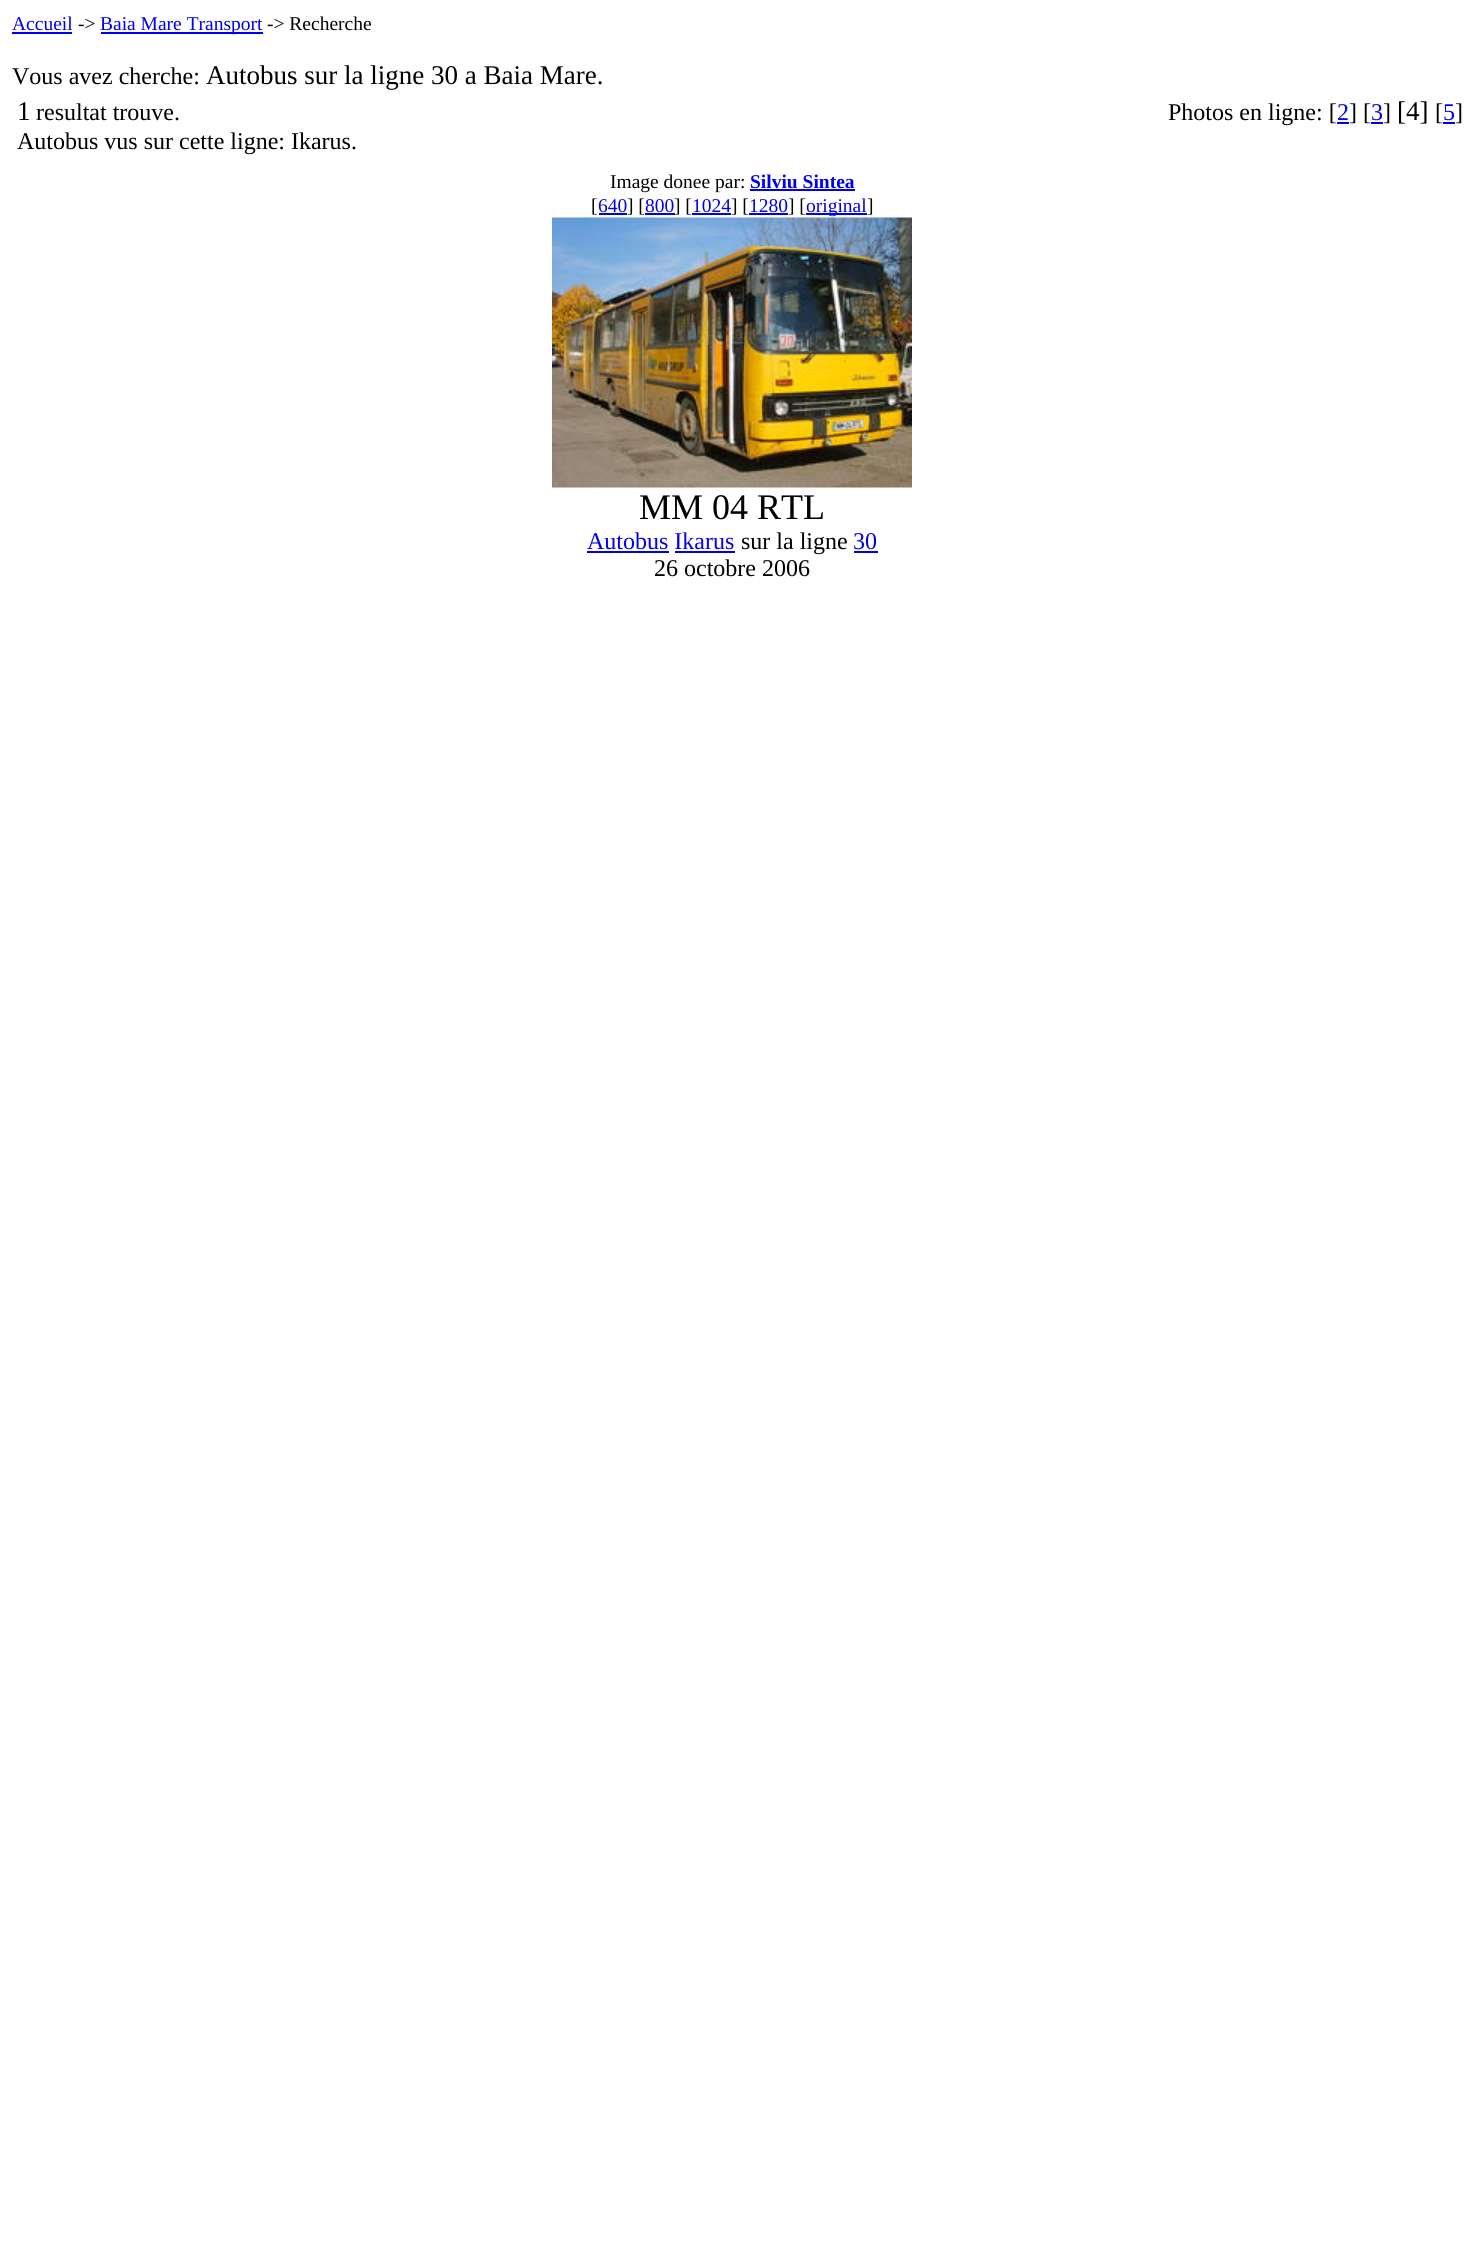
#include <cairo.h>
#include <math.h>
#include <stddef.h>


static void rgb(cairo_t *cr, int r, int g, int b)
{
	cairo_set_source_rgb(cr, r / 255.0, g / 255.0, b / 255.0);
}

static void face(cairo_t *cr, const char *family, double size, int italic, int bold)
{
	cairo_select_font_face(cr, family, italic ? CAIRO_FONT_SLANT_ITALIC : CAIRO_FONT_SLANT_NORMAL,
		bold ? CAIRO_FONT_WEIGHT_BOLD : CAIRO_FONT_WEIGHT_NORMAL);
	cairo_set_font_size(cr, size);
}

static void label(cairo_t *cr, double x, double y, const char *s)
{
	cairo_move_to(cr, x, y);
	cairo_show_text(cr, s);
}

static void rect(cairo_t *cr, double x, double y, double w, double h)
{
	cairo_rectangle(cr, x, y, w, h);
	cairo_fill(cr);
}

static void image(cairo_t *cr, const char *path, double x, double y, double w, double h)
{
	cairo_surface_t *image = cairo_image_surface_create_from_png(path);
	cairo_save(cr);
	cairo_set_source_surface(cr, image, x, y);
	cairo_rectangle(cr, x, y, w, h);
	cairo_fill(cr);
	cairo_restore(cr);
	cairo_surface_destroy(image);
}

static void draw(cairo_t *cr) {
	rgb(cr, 255, 255, 255);
	cairo_paint(cr);
	face(cr, "Liberation Serif", 19.5, 0, 0);
	rgb(cr, 0, 0, 238);
	label(cr, 12, 30, "Accueil");
	rect(cr, 12, 32, 60, 2);
	rgb(cr, 0, 0, 0);
	label(cr, 78, 30, "->");
	rgb(cr, 0, 0, 238);
	rect(cr, 101, 32, 162, 2);
	label(cr, 100, 30, "Baia Mare Transport");
	rgb(cr, 0, 0, 0);
	label(cr, 267, 30, "-> Recherche");
	face(cr, "Liberation Serif", 24, 0, 0);
	label(cr, 12, 84, "Vous avez cherche:");
	face(cr, "Liberation Serif", 27, 0, 0);
	label(cr, 206, 84, "Autobus sur la ligne 30 a Baia Mare.");
	label(cr, 17, 120, "1");
	face(cr, "Liberation Serif", 24, 0, 0);
	label(cr, 36, 120, "resultat trouve.");
	label(cr, 17, 149, "Autobus vus sur cette ligne: Ikarus.");
	label(cr, 1168, 120, "Photos en ligne: [");
	rgb(cr, 0, 0, 238);
	label(cr, 1337, 120, "2");
	rect(cr, 1337, 122, 12, 2);
	rgb(cr, 0, 0, 0);
	label(cr, 1349, 120, "] [");
	rgb(cr, 0, 0, 238);
	label(cr, 1371, 120, "3");
	rect(cr, 1371, 122, 12, 2);
	rgb(cr, 0, 0, 0);
	label(cr, 1383, 120, "]");
	face(cr, "Liberation Serif", 27, 0, 0);
	label(cr, 1397, 120, "[4]");
	face(cr, "Liberation Serif", 24, 0, 0);
	label(cr, 1435, 120, "[");
	rgb(cr, 0, 0, 238);
	label(cr, 1443, 120, "5");
	rect(cr, 1443, 122, 12, 2);
	rgb(cr, 0, 0, 0);
	label(cr, 1455, 120, "]");
	face(cr, "Liberation Serif", 19.5, 0, 0);
	label(cr, 610, 188, "Image donee par:");
	face(cr, "Liberation Serif", 19.5, 0, 1);
	rgb(cr, 0, 0, 238);
	label(cr, 750, 188, "Silviu Sintea");
	rect(cr, 750, 189, 105, 2);
	face(cr, "Liberation Serif", 19.5, 0, 0);
	rgb(cr, 0, 0, 0);
	label(cr, 591, 212, "[");
	rgb(cr, 0, 0, 238);
	label(cr, 598, 212, "640");
	rgb(cr, 0, 0, 0);
	label(cr, 627, 212, "] [");
	rgb(cr, 0, 0, 238);
	rect(cr, 599, 213, 28, 2);
	rect(cr, 645, 213, 30, 2);
	label(cr, 645, 212, "800");
	rgb(cr, 0, 0, 0);
	label(cr, 674, 212, "] [");
	rgb(cr, 0, 0, 238);
	rect(cr, 692, 213, 39, 2);
	label(cr, 692, 212, "1024");
	rgb(cr, 0, 0, 0);
	label(cr, 731, 212, "] [");
	rgb(cr, 0, 0, 238);
	rect(cr, 749, 213, 39, 2);
	label(cr, 749, 212, "1280");
	rgb(cr, 0, 0, 0);
	label(cr, 788, 212, "] [");
	rgb(cr, 0, 0, 238);
	rect(cr, 806, 213, 61, 2);
	label(cr, 806, 212, "original");
	rgb(cr, 0, 0, 0);
	label(cr, 867, 212, "]");
	image(cr, "image0.png", 552, 217, 360, 271);
	face(cr, "Liberation Serif", 36, 0, 0);
	label(cr, 639, 519, "MM 04 RTL");
	face(cr, "Liberation Serif", 24, 0, 0);
	rgb(cr, 0, 0, 238);
	label(cr, 587, 549, "Autobus Ikarus");
	rect(cr, 587, 551, 82, 2);
	rgb(cr, 0, 0, 0);
	label(cr, 741, 549, "sur la ligne");
	rgb(cr, 0, 0, 238);
	label(cr, 853, 549, "30");
	rect(cr, 854, 551, 24, 2);
	rect(cr, 675, 551, 60, 2);
	rgb(cr, 0, 0, 0);
	label(cr, 654, 576, "26 octobre 2006");
}

int main(void) {
	cairo_surface_t *surface = cairo_image_surface_create(CAIRO_FORMAT_RGB24, 1478, 2244);
	cairo_t *cr = cairo_create(surface);
	cairo_font_options_t *options = cairo_font_options_create();
	cairo_font_options_set_hint_metrics(options, CAIRO_HINT_METRICS_OFF);
	cairo_font_options_set_hint_style(options, CAIRO_HINT_STYLE_NONE);
	cairo_set_font_options(cr, options);
	cairo_set_miter_limit(cr, 4);
	draw(cr);
	cairo_surface_write_to_png(surface, "render.png");
	cairo_font_options_destroy(options);
	cairo_destroy(cr);
	cairo_surface_destroy(surface);
	return 0;
}
